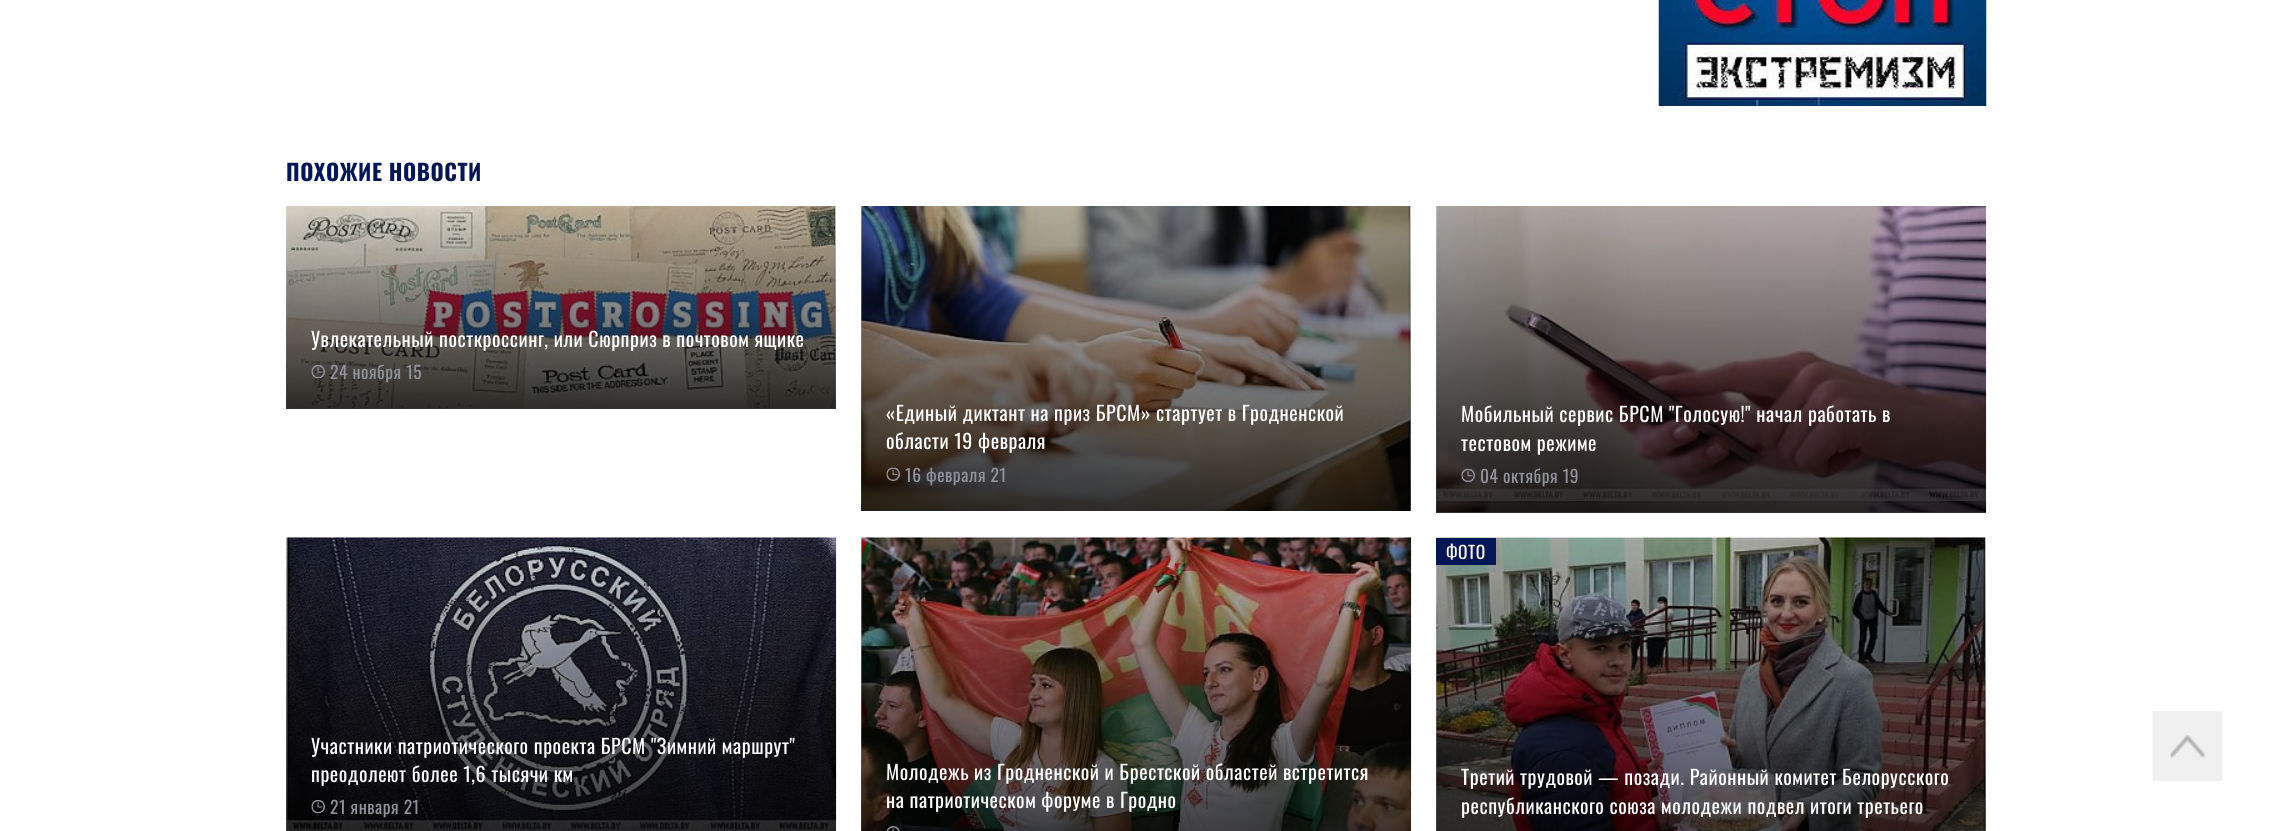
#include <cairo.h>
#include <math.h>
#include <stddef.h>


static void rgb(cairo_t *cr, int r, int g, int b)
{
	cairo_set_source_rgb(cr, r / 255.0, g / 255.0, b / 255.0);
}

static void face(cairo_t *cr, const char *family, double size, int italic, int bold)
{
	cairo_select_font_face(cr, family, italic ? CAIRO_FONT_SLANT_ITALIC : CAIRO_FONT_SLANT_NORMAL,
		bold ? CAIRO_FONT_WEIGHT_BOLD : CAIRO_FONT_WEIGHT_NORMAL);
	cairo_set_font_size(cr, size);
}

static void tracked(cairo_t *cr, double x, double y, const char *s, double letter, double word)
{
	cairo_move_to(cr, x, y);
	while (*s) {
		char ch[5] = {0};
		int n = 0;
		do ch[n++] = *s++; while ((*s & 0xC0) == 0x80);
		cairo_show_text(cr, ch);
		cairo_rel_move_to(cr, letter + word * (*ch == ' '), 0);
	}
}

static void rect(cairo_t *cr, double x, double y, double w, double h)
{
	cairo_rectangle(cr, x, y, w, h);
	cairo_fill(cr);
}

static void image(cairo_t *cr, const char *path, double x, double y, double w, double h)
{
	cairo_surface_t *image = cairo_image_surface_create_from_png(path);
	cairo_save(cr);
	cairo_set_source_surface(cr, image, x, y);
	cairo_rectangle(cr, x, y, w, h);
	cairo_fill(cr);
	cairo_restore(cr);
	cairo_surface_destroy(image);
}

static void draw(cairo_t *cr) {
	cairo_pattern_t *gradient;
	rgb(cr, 255, 255, 255);
	cairo_paint(cr);
	image(cr, "image0.png", 1658, 0, 329, 106);
	face(cr, "Oswald", 22.5, 0, 1);
	rgb(cr, 4, 22, 85);
	tracked(cr, 286, 181, "ПОХОЖИЕ НОВОСТИ", 0.53, 0);
	image(cr, "image1.png", 286, 206, 550, 203);
	gradient = cairo_pattern_create_linear(561, 409, 561, 206);
	cairo_pattern_add_color_stop_rgba(gradient, 0, 0, 0, 0, 0.8);
	cairo_pattern_add_color_stop_rgba(gradient, 1, 0, 0, 0, 0.14);
	cairo_set_source(cr, gradient);
	cairo_pattern_destroy(gradient);
	rect(cr, 286, 206, 550, 203);
	face(cr, "Oswald", 20, 0, 0);
	rgb(cr, 255, 255, 255);
	tracked(cr, 311, 347, "Увлекательный посткроссинг, или Сюрприз в почтовом ящике", 0.53, 0);
	image(cr, "image2.png", 311, 365, 14, 14);
	face(cr, "Oswald", 17.5, 0, 0);
	rgb(cr, 145, 147, 156);
	tracked(cr, 330, 379, "24 ноября 15", 0.53, 0);
	image(cr, "image3.png", 861, 206, 550, 305);
	gradient = cairo_pattern_create_linear(1136, 511, 1136, 206);
	cairo_pattern_add_color_stop_rgba(gradient, 0, 0, 0, 0, 0.8);
	cairo_pattern_add_color_stop_rgba(gradient, 1, 0, 0, 0, 0.14);
	cairo_set_source(cr, gradient);
	cairo_pattern_destroy(gradient);
	rect(cr, 861, 206, 550, 305);
	face(cr, "Oswald", 20, 0, 0);
	rgb(cr, 255, 255, 255);
	tracked(cr, 886, 421, "«Единый диктант на приз БРСМ» стартует в Гродненской", 0.53, 0);
	tracked(cr, 886, 449, "области 19 февраля", 0.53, 0);
	image(cr, "image4.png", 886, 467, 14, 14);
	face(cr, "Oswald", 17.5, 0, 0);
	rgb(cr, 145, 147, 156);
	tracked(cr, 905, 482, "16 февраля 21", 0.53, 0);
	image(cr, "image5.png", 1436, 206, 551, 307);
	gradient = cairo_pattern_create_linear(1711, 513, 1711, 206);
	cairo_pattern_add_color_stop_rgba(gradient, 0, 0, 0, 0, 0.8);
	cairo_pattern_add_color_stop_rgba(gradient, 1, 0, 0, 0, 0.14);
	cairo_set_source(cr, gradient);
	cairo_pattern_destroy(gradient);
	rect(cr, 1436, 206, 550, 307);
	face(cr, "Oswald", 20, 0, 0);
	rgb(cr, 255, 255, 255);
	tracked(cr, 1461, 422, "Мобильный сервис БРСМ \"Голосую!\" начал работать в", 0.53, 0);
	tracked(cr, 1461, 451, "тестовом режиме", 0.53, 0);
	image(cr, "image6.png", 1461, 468, 14, 14);
	face(cr, "Oswald", 17.5, 0, 0);
	rgb(cr, 145, 147, 156);
	tracked(cr, 1480, 483, "04 октября 19", 0.53, 0);
	image(cr, "image7.png", 286, 537, 551, 294);
	gradient = cairo_pattern_create_linear(561, 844, 561, 538);
	cairo_pattern_add_color_stop_rgba(gradient, 0, 0, 0, 0, 0.8);
	cairo_pattern_add_color_stop_rgba(gradient, 1, 0, 0, 0, 0.14);
	cairo_set_source(cr, gradient);
	cairo_pattern_destroy(gradient);
	rect(cr, 286, 538, 550, 293);
	face(cr, "Oswald", 20, 0, 0);
	rgb(cr, 255, 255, 255);
	tracked(cr, 311, 754, "Участники патриотического проекта БРСМ \"Зимний маршрут\"", 0.53, 0);
	tracked(cr, 311, 782, "преодолеют более 1,6 тысячи км", 0.53, 0);
	image(cr, "image8.png", 311, 800, 14, 14);
	face(cr, "Oswald", 17.5, 0, 0);
	rgb(cr, 145, 147, 156);
	tracked(cr, 330, 814, "21 января 21", 0.53, 0);
	image(cr, "image9.png", 861, 537, 551, 294);
	gradient = cairo_pattern_create_linear(1136, 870, 1136, 538);
	cairo_pattern_add_color_stop_rgba(gradient, 0, 0, 0, 0, 0.8);
	cairo_pattern_add_color_stop_rgba(gradient, 1, 0, 0, 0, 0.14);
	cairo_set_source(cr, gradient);
	cairo_pattern_destroy(gradient);
	rect(cr, 861, 538, 550, 293);
	face(cr, "Oswald", 20, 0, 0);
	rgb(cr, 255, 255, 255);
	tracked(cr, 886, 780, "Молодежь из Гродненской и Брестской областей встретится", 0.53, 0);
	tracked(cr, 886, 808, "на патриотическом форуме в Гродно", 0.53, 0);
	image(cr, "image10.png", 886, 826, 14, 5);
	image(cr, "image11.png", 1436, 537, 550, 294);
	gradient = cairo_pattern_create_linear(1711, 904, 1711, 538);
	cairo_pattern_add_color_stop_rgba(gradient, 0, 0, 0, 0, 0.8);
	cairo_pattern_add_color_stop_rgba(gradient, 1, 0, 0, 0, 0.14);
	cairo_set_source(cr, gradient);
	cairo_pattern_destroy(gradient);
	rect(cr, 1436, 538, 550, 293);
	rgb(cr, 4, 22, 85);
	rect(cr, 1436, 538, 60, 27);
	face(cr, "Oswald", 17.5, 0, 0);
	rgb(cr, 255, 255, 255);
	tracked(cr, 1446, 559, "ФОТО", 0.53, 0);
	face(cr, "Oswald", 20, 0, 0);
	tracked(cr, 1461, 785, "Третий трудовой — позади. Районный комитет Белорусского", 0.53, 0);
	tracked(cr, 1461, 814, "республиканского союза молодежи подвел итоги третьего", 0.53, 0);
	rgb(cr, 250, 250, 250);
	rect(cr, 2153, 711, 70, 70);
	image(cr, "image12.png", 2152, 711, 71, 70);
}

int main(void) {
	cairo_surface_t *surface = cairo_image_surface_create(CAIRO_FORMAT_RGB24, 2272, 831);
	cairo_t *cr = cairo_create(surface);
	cairo_font_options_t *options = cairo_font_options_create();
	cairo_font_options_set_hint_metrics(options, CAIRO_HINT_METRICS_OFF);
	cairo_font_options_set_hint_style(options, CAIRO_HINT_STYLE_NONE);
	cairo_set_font_options(cr, options);
	cairo_set_miter_limit(cr, 4);
	draw(cr);
	cairo_surface_write_to_png(surface, "render.png");
	cairo_font_options_destroy(options);
	cairo_destroy(cr);
	cairo_surface_destroy(surface);
	return 0;
}
